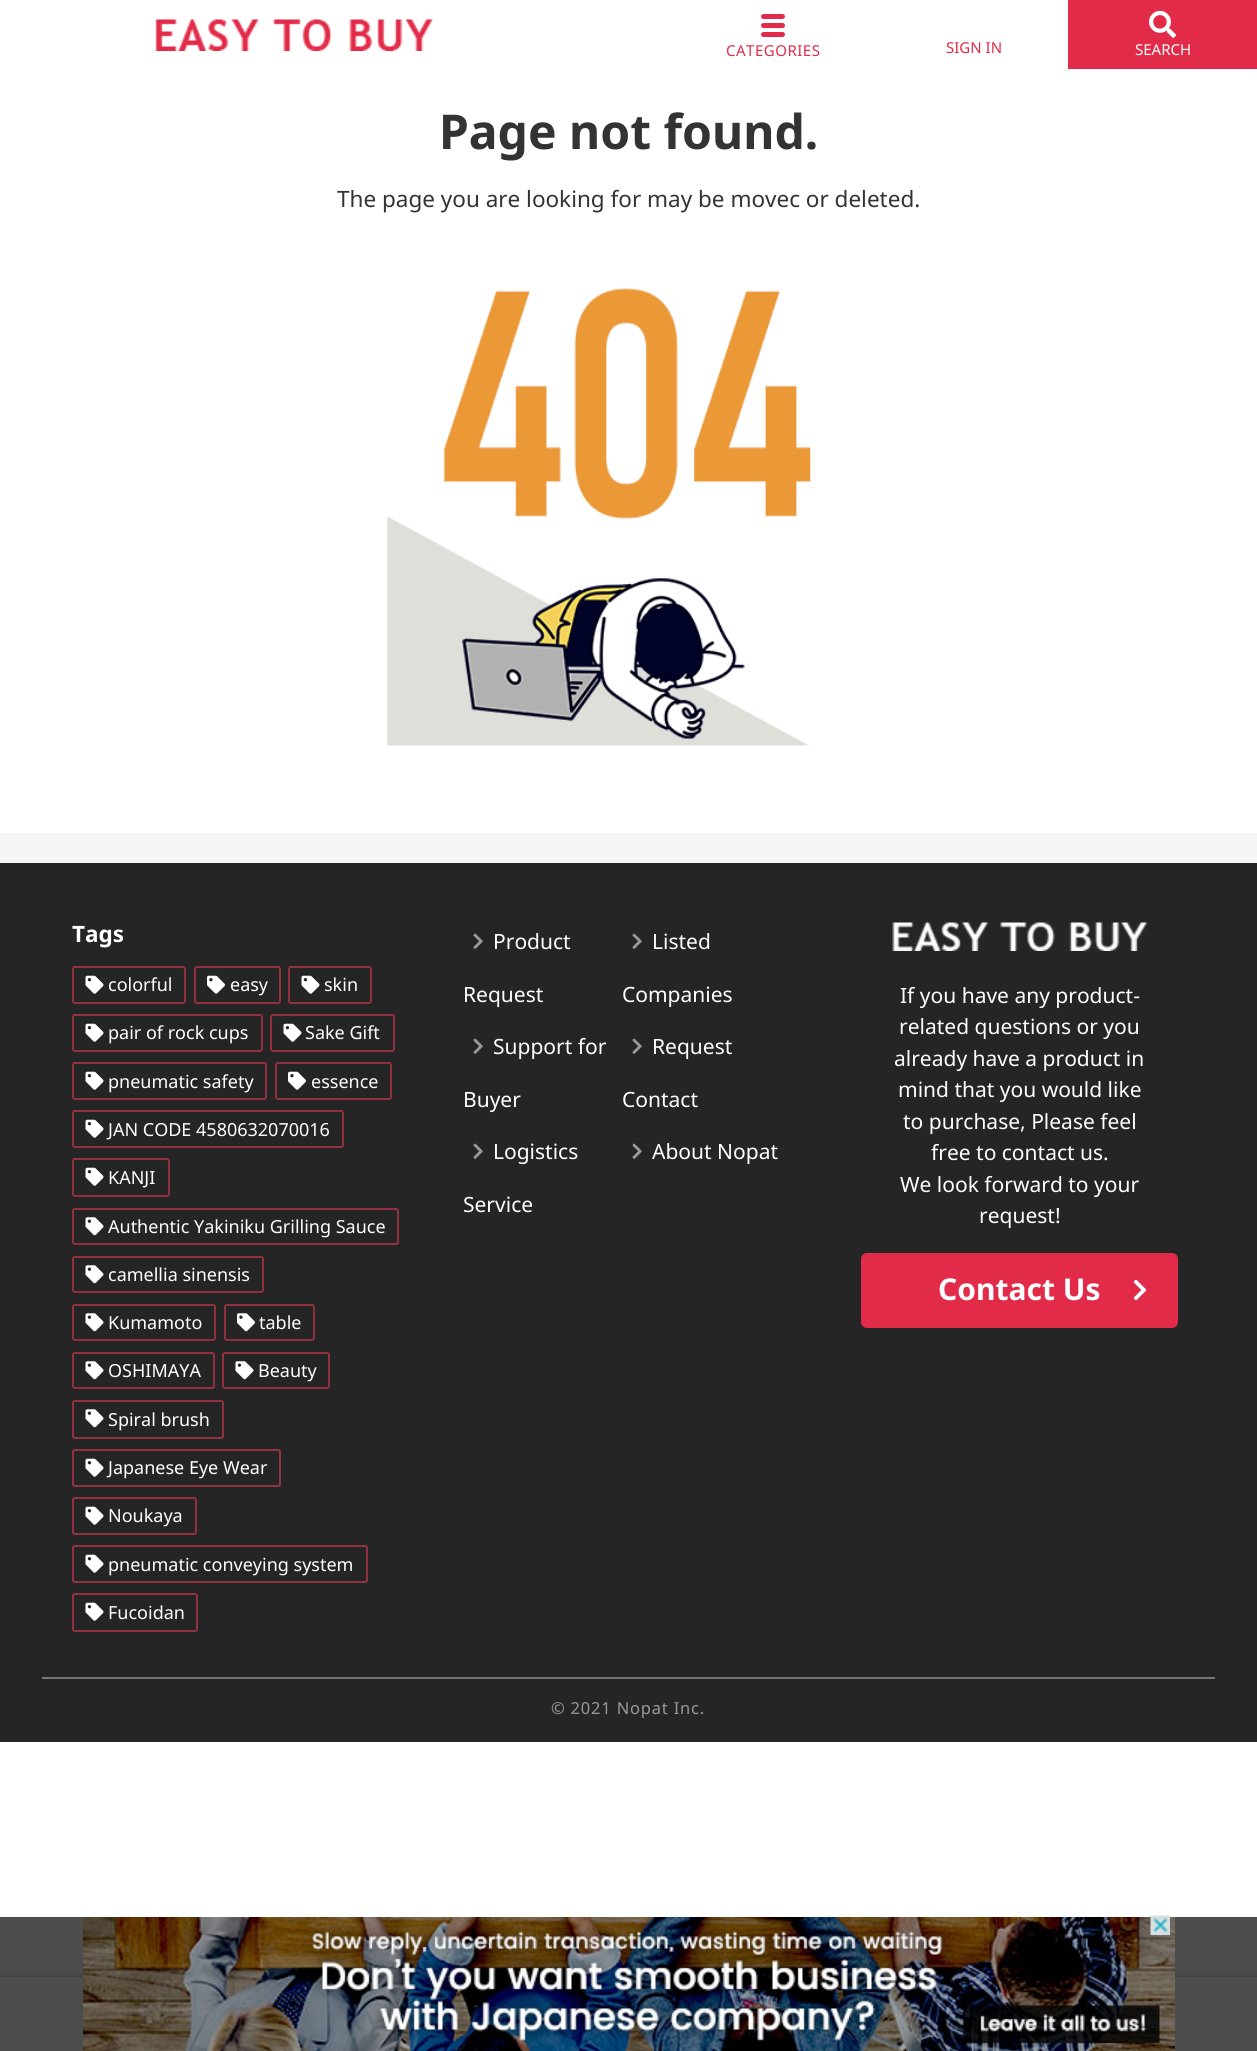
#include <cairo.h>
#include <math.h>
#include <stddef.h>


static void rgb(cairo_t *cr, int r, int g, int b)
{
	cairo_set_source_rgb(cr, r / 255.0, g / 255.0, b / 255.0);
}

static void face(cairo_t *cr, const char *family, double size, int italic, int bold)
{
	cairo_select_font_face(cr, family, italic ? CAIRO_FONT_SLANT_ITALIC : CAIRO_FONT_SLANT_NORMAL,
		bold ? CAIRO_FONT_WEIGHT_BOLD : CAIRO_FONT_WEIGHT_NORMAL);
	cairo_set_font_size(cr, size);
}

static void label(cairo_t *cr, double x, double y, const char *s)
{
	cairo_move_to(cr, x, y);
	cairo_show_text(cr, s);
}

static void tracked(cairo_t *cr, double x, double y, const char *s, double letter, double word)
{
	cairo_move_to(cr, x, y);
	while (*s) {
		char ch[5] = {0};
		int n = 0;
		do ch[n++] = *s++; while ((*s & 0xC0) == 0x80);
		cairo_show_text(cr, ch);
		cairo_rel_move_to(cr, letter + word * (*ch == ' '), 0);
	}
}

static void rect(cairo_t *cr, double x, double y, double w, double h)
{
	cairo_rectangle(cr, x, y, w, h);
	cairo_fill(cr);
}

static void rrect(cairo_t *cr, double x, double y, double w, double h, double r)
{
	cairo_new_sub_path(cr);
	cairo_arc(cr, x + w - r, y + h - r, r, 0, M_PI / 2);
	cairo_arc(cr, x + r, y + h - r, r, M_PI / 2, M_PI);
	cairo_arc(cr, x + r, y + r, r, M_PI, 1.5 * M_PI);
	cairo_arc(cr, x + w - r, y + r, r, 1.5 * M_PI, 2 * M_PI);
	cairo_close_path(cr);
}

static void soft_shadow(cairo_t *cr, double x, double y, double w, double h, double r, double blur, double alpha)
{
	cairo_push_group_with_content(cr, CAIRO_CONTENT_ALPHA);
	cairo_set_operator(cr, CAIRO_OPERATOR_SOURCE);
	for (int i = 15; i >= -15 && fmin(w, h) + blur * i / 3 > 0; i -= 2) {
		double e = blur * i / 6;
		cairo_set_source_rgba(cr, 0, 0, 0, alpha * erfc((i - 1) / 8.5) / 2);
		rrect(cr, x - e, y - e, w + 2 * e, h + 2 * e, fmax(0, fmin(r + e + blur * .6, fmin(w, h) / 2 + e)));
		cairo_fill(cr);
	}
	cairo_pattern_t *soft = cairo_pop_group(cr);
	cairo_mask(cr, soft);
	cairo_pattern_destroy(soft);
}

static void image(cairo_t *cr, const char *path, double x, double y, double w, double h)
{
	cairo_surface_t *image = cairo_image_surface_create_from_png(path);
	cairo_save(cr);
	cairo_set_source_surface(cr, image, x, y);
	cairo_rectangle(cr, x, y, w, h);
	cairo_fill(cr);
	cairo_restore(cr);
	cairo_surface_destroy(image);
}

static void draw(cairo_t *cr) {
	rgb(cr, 255, 255, 255);
	cairo_paint(cr);
	rgb(cr, 77, 77, 77);
	rect(cr, 0, 1917, 1257, 134);
	image(cr, "image0.png", 155, 19, 279, 32);
	rgb(cr, 226, 43, 72);
	rrect(cr, 761, 14, 24, 5, 2.5);
	cairo_fill(cr);
	rrect(cr, 761, 23, 24, 5, 2.5);
	cairo_fill(cr);
	rrect(cr, 761, 32, 24, 5, 2.5);
	cairo_fill(cr);
	face(cr, "Noto Sans", 15, 0, 0);
	tracked(cr, 726, 56, "CATEGORIES", 0.5, 0);
	label(cr, 946, 53, "SIGN IN");
	rect(cr, 1068, 0, 189, 69);
	image(cr, "image1.png", 1149, 10, 27, 28);
	rgb(cr, 255, 255, 255);
	label(cr, 1135, 55, "SEARCH");
	rgb(cr, 244, 245, 247);
	rect(cr, 0, 833, 1257, 30);
	face(cr, "Noto Sans", 48, 0, 1);
	rgb(cr, 51, 51, 51);
	label(cr, 439, 149, "Page not found.");
	face(cr, "Noto Sans", 22.5, 0, 0);
	label(cr, 337, 207, "The page you are looking for may be movec or deleted.");
	image(cr, "image2.png", 387, 288, 424, 458);
	rgb(cr, 37, 37, 37);
	rect(cr, 0, 863, 1257, 879);
	face(cr, "Noto Sans", 22.5, 0, 1);
	rgb(cr, 255, 255, 255);
	label(cr, 72, 942, "Tags");
	rrect(cr, 73, 967, 112, 36, 2);
	rgb(cr, 146, 49, 64);
	cairo_stroke(cr);
	image(cr, "image3.png", 85, 975, 19, 19);
	face(cr, "Noto Sans", 18, 0, 0);
	rgb(cr, 255, 255, 255);
	label(cr, 108, 991, "colorful");
	rrect(cr, 195, 967, 85, 36, 2);
	rgb(cr, 146, 49, 64);
	cairo_stroke(cr);
	image(cr, "image4.png", 207, 975, 18, 19);
	rgb(cr, 255, 255, 255);
	label(cr, 230, 991, "easy");
	rrect(cr, 289, 967, 82, 36, 2);
	rgb(cr, 146, 49, 64);
	cairo_stroke(cr);
	image(cr, "image3.png", 301, 975, 19, 19);
	rgb(cr, 255, 255, 255);
	label(cr, 324, 991, "skin");
	rrect(cr, 73, 1015, 189, 36, 2);
	rgb(cr, 146, 49, 64);
	cairo_stroke(cr);
	image(cr, "image3.png", 85, 1023, 19, 19);
	rgb(cr, 255, 255, 255);
	label(cr, 108, 1039, "pair of rock cups");
	rrect(cr, 271, 1015, 123, 36, 2);
	rgb(cr, 146, 49, 64);
	cairo_stroke(cr);
	image(cr, "image3.png", 283, 1023, 19, 19);
	rgb(cr, 255, 255, 255);
	label(cr, 305, 1039, "Sake Gift");
	rrect(cr, 73, 1063, 193, 36, 2);
	rgb(cr, 146, 49, 64);
	cairo_stroke(cr);
	image(cr, "image3.png", 85, 1071, 19, 19);
	rgb(cr, 255, 255, 255);
	label(cr, 108, 1088, "pneumatic safety");
	rrect(cr, 276, 1063, 115, 36, 2);
	rgb(cr, 146, 49, 64);
	cairo_stroke(cr);
	image(cr, "image4.png", 288, 1071, 18, 19);
	rgb(cr, 255, 255, 255);
	label(cr, 311, 1088, "essence");
	rrect(cr, 73, 1111, 270, 36, 2);
	rgb(cr, 146, 49, 64);
	cairo_stroke(cr);
	image(cr, "image3.png", 85, 1119, 19, 19);
	rgb(cr, 255, 255, 255);
	label(cr, 108, 1136, "JAN CODE 4580632070016");
	rrect(cr, 73, 1159, 96, 37, 2);
	rgb(cr, 146, 49, 64);
	cairo_stroke(cr);
	image(cr, "image3.png", 85, 1167, 19, 19);
	rgb(cr, 255, 255, 255);
	label(cr, 108, 1184, "KANJI");
	rrect(cr, 73, 1209, 325, 35, 2);
	rgb(cr, 146, 49, 64);
	cairo_stroke(cr);
	image(cr, "image5.png", 85, 1217, 19, 19);
	rgb(cr, 255, 255, 255);
	label(cr, 108, 1233, "Authentic Yakiniku Grilling Sauce");
	rrect(cr, 73, 1257, 190, 35, 2);
	rgb(cr, 146, 49, 64);
	cairo_stroke(cr);
	image(cr, "image5.png", 85, 1265, 19, 19);
	rgb(cr, 255, 255, 255);
	label(cr, 108, 1281, "camellia sinensis");
	rrect(cr, 73, 1305, 142, 35, 2);
	rgb(cr, 146, 49, 64);
	cairo_stroke(cr);
	image(cr, "image5.png", 85, 1313, 19, 19);
	rgb(cr, 255, 255, 255);
	label(cr, 108, 1329, "Kumamoto");
	rrect(cr, 225, 1305, 89, 35, 2);
	rgb(cr, 146, 49, 64);
	cairo_stroke(cr);
	image(cr, "image6.png", 237, 1313, 18, 19);
	rgb(cr, 255, 255, 255);
	label(cr, 259, 1329, "table");
	rrect(cr, 73, 1353, 141, 35, 2);
	rgb(cr, 146, 49, 64);
	cairo_stroke(cr);
	image(cr, "image5.png", 85, 1361, 19, 19);
	rgb(cr, 255, 255, 255);
	label(cr, 108, 1377, "OSHIMAYA");
	rrect(cr, 223, 1353, 106, 35, 2);
	rgb(cr, 146, 49, 64);
	cairo_stroke(cr);
	image(cr, "image5.png", 235, 1361, 19, 19);
	rgb(cr, 255, 255, 255);
	label(cr, 258, 1377, "Beauty");
	rrect(cr, 73, 1401, 150, 37, 2);
	rgb(cr, 146, 49, 64);
	cairo_stroke(cr);
	image(cr, "image5.png", 85, 1409, 19, 19);
	rgb(cr, 255, 255, 255);
	label(cr, 108, 1426, "Spiral brush");
	rrect(cr, 73, 1450, 207, 36, 2);
	rgb(cr, 146, 49, 64);
	cairo_stroke(cr);
	image(cr, "image3.png", 85, 1458, 19, 19);
	rgb(cr, 255, 255, 255);
	label(cr, 108, 1474, "Japanese Eye Wear");
	rrect(cr, 73, 1498, 123, 36, 2);
	rgb(cr, 146, 49, 64);
	cairo_stroke(cr);
	image(cr, "image3.png", 85, 1506, 19, 19);
	rgb(cr, 255, 255, 255);
	label(cr, 108, 1522, "Noukaya");
	rrect(cr, 73, 1546, 294, 36, 2);
	rgb(cr, 146, 49, 64);
	cairo_stroke(cr);
	image(cr, "image3.png", 85, 1554, 19, 19);
	rgb(cr, 255, 255, 255);
	label(cr, 108, 1571, "pneumatic conveying system");
	rrect(cr, 73, 1594, 124, 37, 2);
	rgb(cr, 146, 49, 64);
	cairo_stroke(cr);
	image(cr, "image3.png", 85, 1602, 19, 19);
	rgb(cr, 255, 255, 255);
	label(cr, 108, 1619, "Fucoidan");
	image(cr, "image7.png", 473, 933, 10, 16);
	face(cr, "Noto Sans", 21, 0, 0);
	label(cr, 493, 949, "Product");
	label(cr, 463, 1002, "Request");
	image(cr, "image7.png", 632, 933, 10, 16);
	label(cr, 652, 949, "Listed");
	label(cr, 622, 1002, "Companies");
	image(cr, "image7.png", 473, 1038, 10, 16);
	label(cr, 493, 1054, "Support for");
	label(cr, 463, 1107, "Buyer");
	image(cr, "image7.png", 632, 1038, 10, 16);
	label(cr, 652, 1054, "Request");
	label(cr, 622, 1107, "Contact");
	image(cr, "image7.png", 473, 1143, 10, 16);
	label(cr, 493, 1159, "Logistics");
	label(cr, 463, 1212, "Service");
	image(cr, "image7.png", 632, 1143, 10, 16);
	label(cr, 652, 1159, "About Nopat");
	image(cr, "image8.png", 892, 922, 256, 29);
	label(cr, 900, 1003, "If you have any product-");
	label(cr, 899, 1034, "related questions or you");
	label(cr, 894, 1066, "already have a product in");
	label(cr, 898, 1097, "mind that you would like");
	label(cr, 903, 1129, "to purchase, Please feel");
	label(cr, 931, 1160, "free to contact us.");
	label(cr, 900, 1192, "We look forward to your");
	label(cr, 979, 1223, "request!");
	rgb(cr, 226, 43, 72);
	rrect(cr, 862, 1254, 315, 73, 5);
	cairo_fill_preserve(cr);
	cairo_stroke(cr);
	face(cr, "Noto Sans", 30, 0, 1);
	rgb(cr, 255, 255, 255);
	label(cr, 938, 1300, "Contact Us");
	image(cr, "image9.png", 1133, 1279, 14, 22);
	rgb(cr, 119, 119, 119);
	rect(cr, 42, 1677, 1173, 2);
	face(cr, "Noto Sans", 16.5, 0, 0);
	rgb(cr, 153, 153, 153);
	tracked(cr, 551, 1714, "© 2021 Nopat Inc.", 0.8, 0);
	cairo_save(cr);
	cairo_rectangle(cr, 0, 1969, 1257, 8);
	cairo_clip(cr);
	rgb(cr, 51, 51, 51);
	soft_shadow(cr, 0, 1977, 1257, 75, 0, 4, 1);
	cairo_restore(cr);
	image(cr, "image11.png", 83, 1917, 1092, 134);
	image(cr, "image10.png", 1150, 1915, 20, 20);
}

int main(void) {
	cairo_surface_t *surface = cairo_image_surface_create(CAIRO_FORMAT_RGB24, 1257, 2051);
	cairo_t *cr = cairo_create(surface);
	cairo_font_options_t *options = cairo_font_options_create();
	cairo_font_options_set_hint_metrics(options, CAIRO_HINT_METRICS_OFF);
	cairo_font_options_set_hint_style(options, CAIRO_HINT_STYLE_NONE);
	cairo_set_font_options(cr, options);
	cairo_set_miter_limit(cr, 4);
	draw(cr);
	cairo_surface_write_to_png(surface, "render.png");
	cairo_font_options_destroy(options);
	cairo_destroy(cr);
	cairo_surface_destroy(surface);
	return 0;
}
